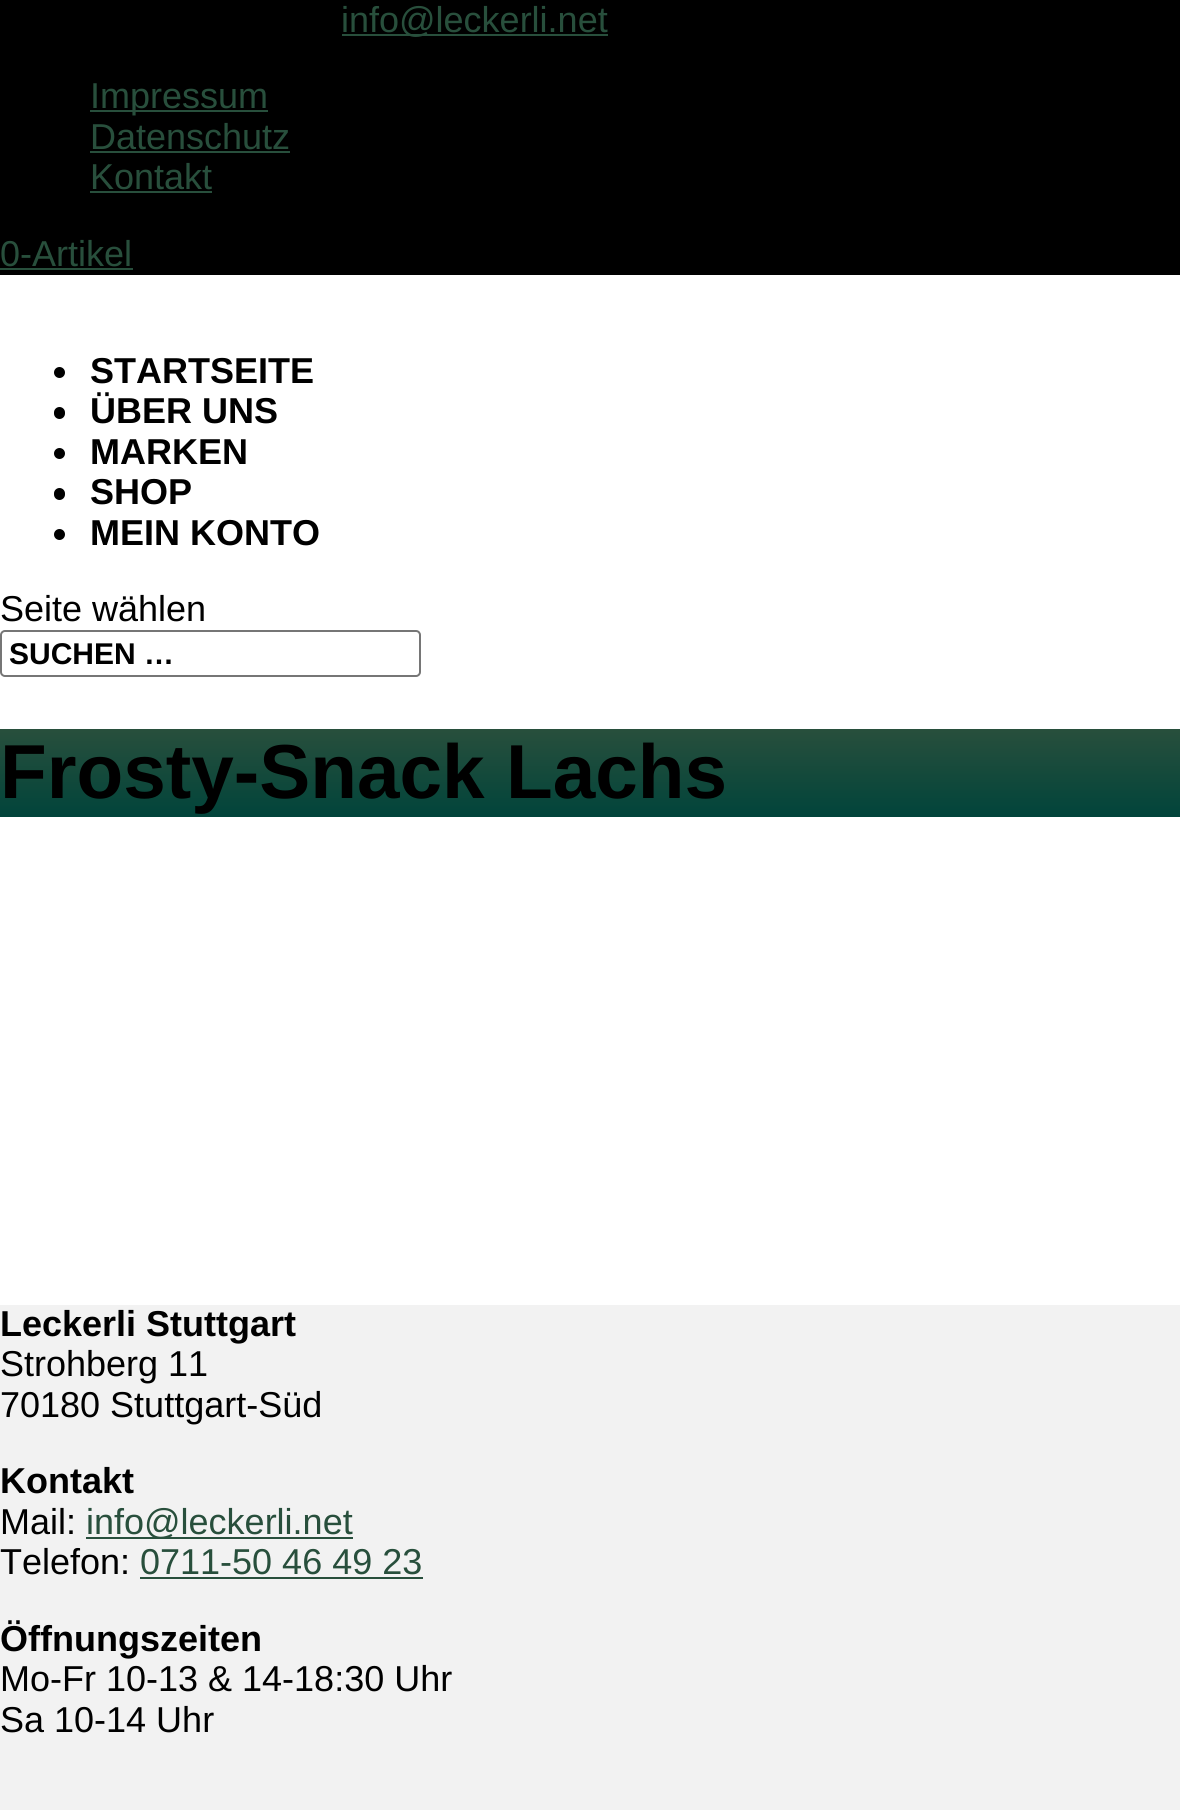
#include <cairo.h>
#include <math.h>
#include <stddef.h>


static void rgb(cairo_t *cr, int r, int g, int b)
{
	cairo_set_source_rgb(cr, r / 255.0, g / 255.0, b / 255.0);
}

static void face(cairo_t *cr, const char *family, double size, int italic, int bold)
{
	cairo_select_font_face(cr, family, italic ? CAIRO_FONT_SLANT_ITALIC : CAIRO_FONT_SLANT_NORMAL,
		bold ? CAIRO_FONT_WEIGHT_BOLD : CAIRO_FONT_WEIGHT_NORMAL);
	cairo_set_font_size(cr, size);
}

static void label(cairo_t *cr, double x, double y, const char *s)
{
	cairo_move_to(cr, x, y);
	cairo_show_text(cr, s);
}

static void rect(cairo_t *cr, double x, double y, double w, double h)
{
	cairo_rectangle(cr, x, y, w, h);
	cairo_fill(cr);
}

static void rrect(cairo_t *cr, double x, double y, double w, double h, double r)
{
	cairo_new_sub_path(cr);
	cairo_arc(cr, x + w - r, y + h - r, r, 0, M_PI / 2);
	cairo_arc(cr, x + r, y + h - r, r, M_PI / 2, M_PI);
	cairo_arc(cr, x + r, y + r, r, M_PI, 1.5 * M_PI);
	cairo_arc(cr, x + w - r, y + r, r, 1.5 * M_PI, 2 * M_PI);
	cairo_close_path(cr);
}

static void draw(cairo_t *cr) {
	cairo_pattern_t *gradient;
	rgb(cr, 255, 255, 255);
	cairo_paint(cr);
	rgb(cr, 0, 0, 0);
	rect(cr, 0, 0, 1180, 275);
	rgb(cr, 40, 79, 60);
	rect(cr, 342, 34, 266, 2);
	face(cr, "Liberation Sans", 36, 0, 0);
	label(cr, 341, 32, "info@leckerli.net");
	rect(cr, 90, 110, 178, 2);
	label(cr, 90, 108, "Impressum");
	label(cr, 90, 149, "Datenschutz");
	rect(cr, 90, 151, 200, 2);
	label(cr, 90, 189, "Kontakt");
	rect(cr, 90, 191, 122, 2);
	label(cr, 0, 266, "0-Artikel");
	rect(cr, 0, 268, 133, 2);
	rgb(cr, 0, 0, 0);
	cairo_new_path(cr);
	cairo_arc(cr, 59.5, 372.5, 5.5, 0, 2 * M_PI);
	cairo_fill(cr);
	face(cr, "Liberation Sans", 36, 0, 1);
	label(cr, 90, 383, "STARTSEITE");
	rrect(cr, 54, 407, 11, 12, 5.5);
	cairo_fill(cr);
	label(cr, 90, 423, "ÜBER UNS");
	cairo_new_path(cr);
	cairo_arc(cr, 59.5, 453.5, 5.5, 0, 2 * M_PI);
	cairo_fill(cr);
	label(cr, 90, 464, "MARKEN");
	rrect(cr, 54, 488, 11, 12, 5.5);
	cairo_fill(cr);
	label(cr, 90, 504, "SHOP");
	cairo_new_path(cr);
	cairo_arc(cr, 59.5, 534.5, 5.5, 0, 2 * M_PI);
	cairo_fill(cr);
	label(cr, 90, 545, "MEIN KONTO");
	face(cr, "Liberation Sans", 36, 0, 0);
	label(cr, 0, 621, "Seite wählen");
	rrect(cr, 1, 631, 419, 45, 4);
	rgb(cr, 118, 118, 118);
	cairo_stroke(cr);
	face(cr, "Liberation Sans", 30, 0, 1);
	rgb(cr, 0, 0, 0);
	label(cr, 9, 664, "SUCHEN …");
	gradient = cairo_pattern_create_linear(591, 729, 591, 817);
	cairo_pattern_add_color_stop_rgba(gradient, 0, 0.157, 0.31, 0.235, 1);
	cairo_pattern_add_color_stop_rgba(gradient, 1, 0.004, 0.267, 0.231, 1);
	cairo_set_source(cr, gradient);
	cairo_pattern_destroy(gradient);
	rect(cr, 0, 729, 1180, 88);
	face(cr, "Liberation Sans", 76.5, 0, 1);
	rgb(cr, 0, 0, 0);
	label(cr, 0, 798, "Frosty-Snack Lachs");
	rgb(cr, 242, 242, 242);
	rect(cr, 0, 1305, 1180, 505);
	face(cr, "Liberation Sans", 36, 0, 1);
	rgb(cr, 0, 0, 0);
	label(cr, 0, 1336, "Leckerli Stuttgart");
	face(cr, "Liberation Sans", 36, 0, 0);
	label(cr, 0, 1376, "Strohberg 11");
	label(cr, 0, 1417, "70180 Stuttgart-Süd");
	face(cr, "Liberation Sans", 36, 0, 1);
	label(cr, 0, 1493, "Kontakt");
	face(cr, "Liberation Sans", 36, 0, 0);
	label(cr, 0, 1534, "Mail:");
	rgb(cr, 40, 79, 60);
	rect(cr, 86, 1537, 267, 2);
	label(cr, 86, 1534, "info@leckerli.net");
	rgb(cr, 0, 0, 0);
	label(cr, 0, 1574, "Telefon:");
	rgb(cr, 40, 79, 60);
	label(cr, 140, 1574, "0711-50 46 49 23");
	rect(cr, 140, 1577, 283, 2);
	face(cr, "Liberation Sans", 36, 0, 1);
	rgb(cr, 0, 0, 0);
	label(cr, 0, 1651, "Öffnungszeiten");
	face(cr, "Liberation Sans", 36, 0, 0);
	label(cr, 0, 1691, "Mo-Fr 10-13 & 14-18:30 Uhr");
	label(cr, 0, 1732, "Sa 10-14 Uhr");
}

int main(void) {
	cairo_surface_t *surface = cairo_image_surface_create(CAIRO_FORMAT_RGB24, 1180, 1810);
	cairo_t *cr = cairo_create(surface);
	cairo_font_options_t *options = cairo_font_options_create();
	cairo_font_options_set_hint_metrics(options, CAIRO_HINT_METRICS_OFF);
	cairo_font_options_set_hint_style(options, CAIRO_HINT_STYLE_NONE);
	cairo_set_font_options(cr, options);
	cairo_set_miter_limit(cr, 4);
	draw(cr);
	cairo_surface_write_to_png(surface, "render.png");
	cairo_font_options_destroy(options);
	cairo_destroy(cr);
	cairo_surface_destroy(surface);
	return 0;
}
